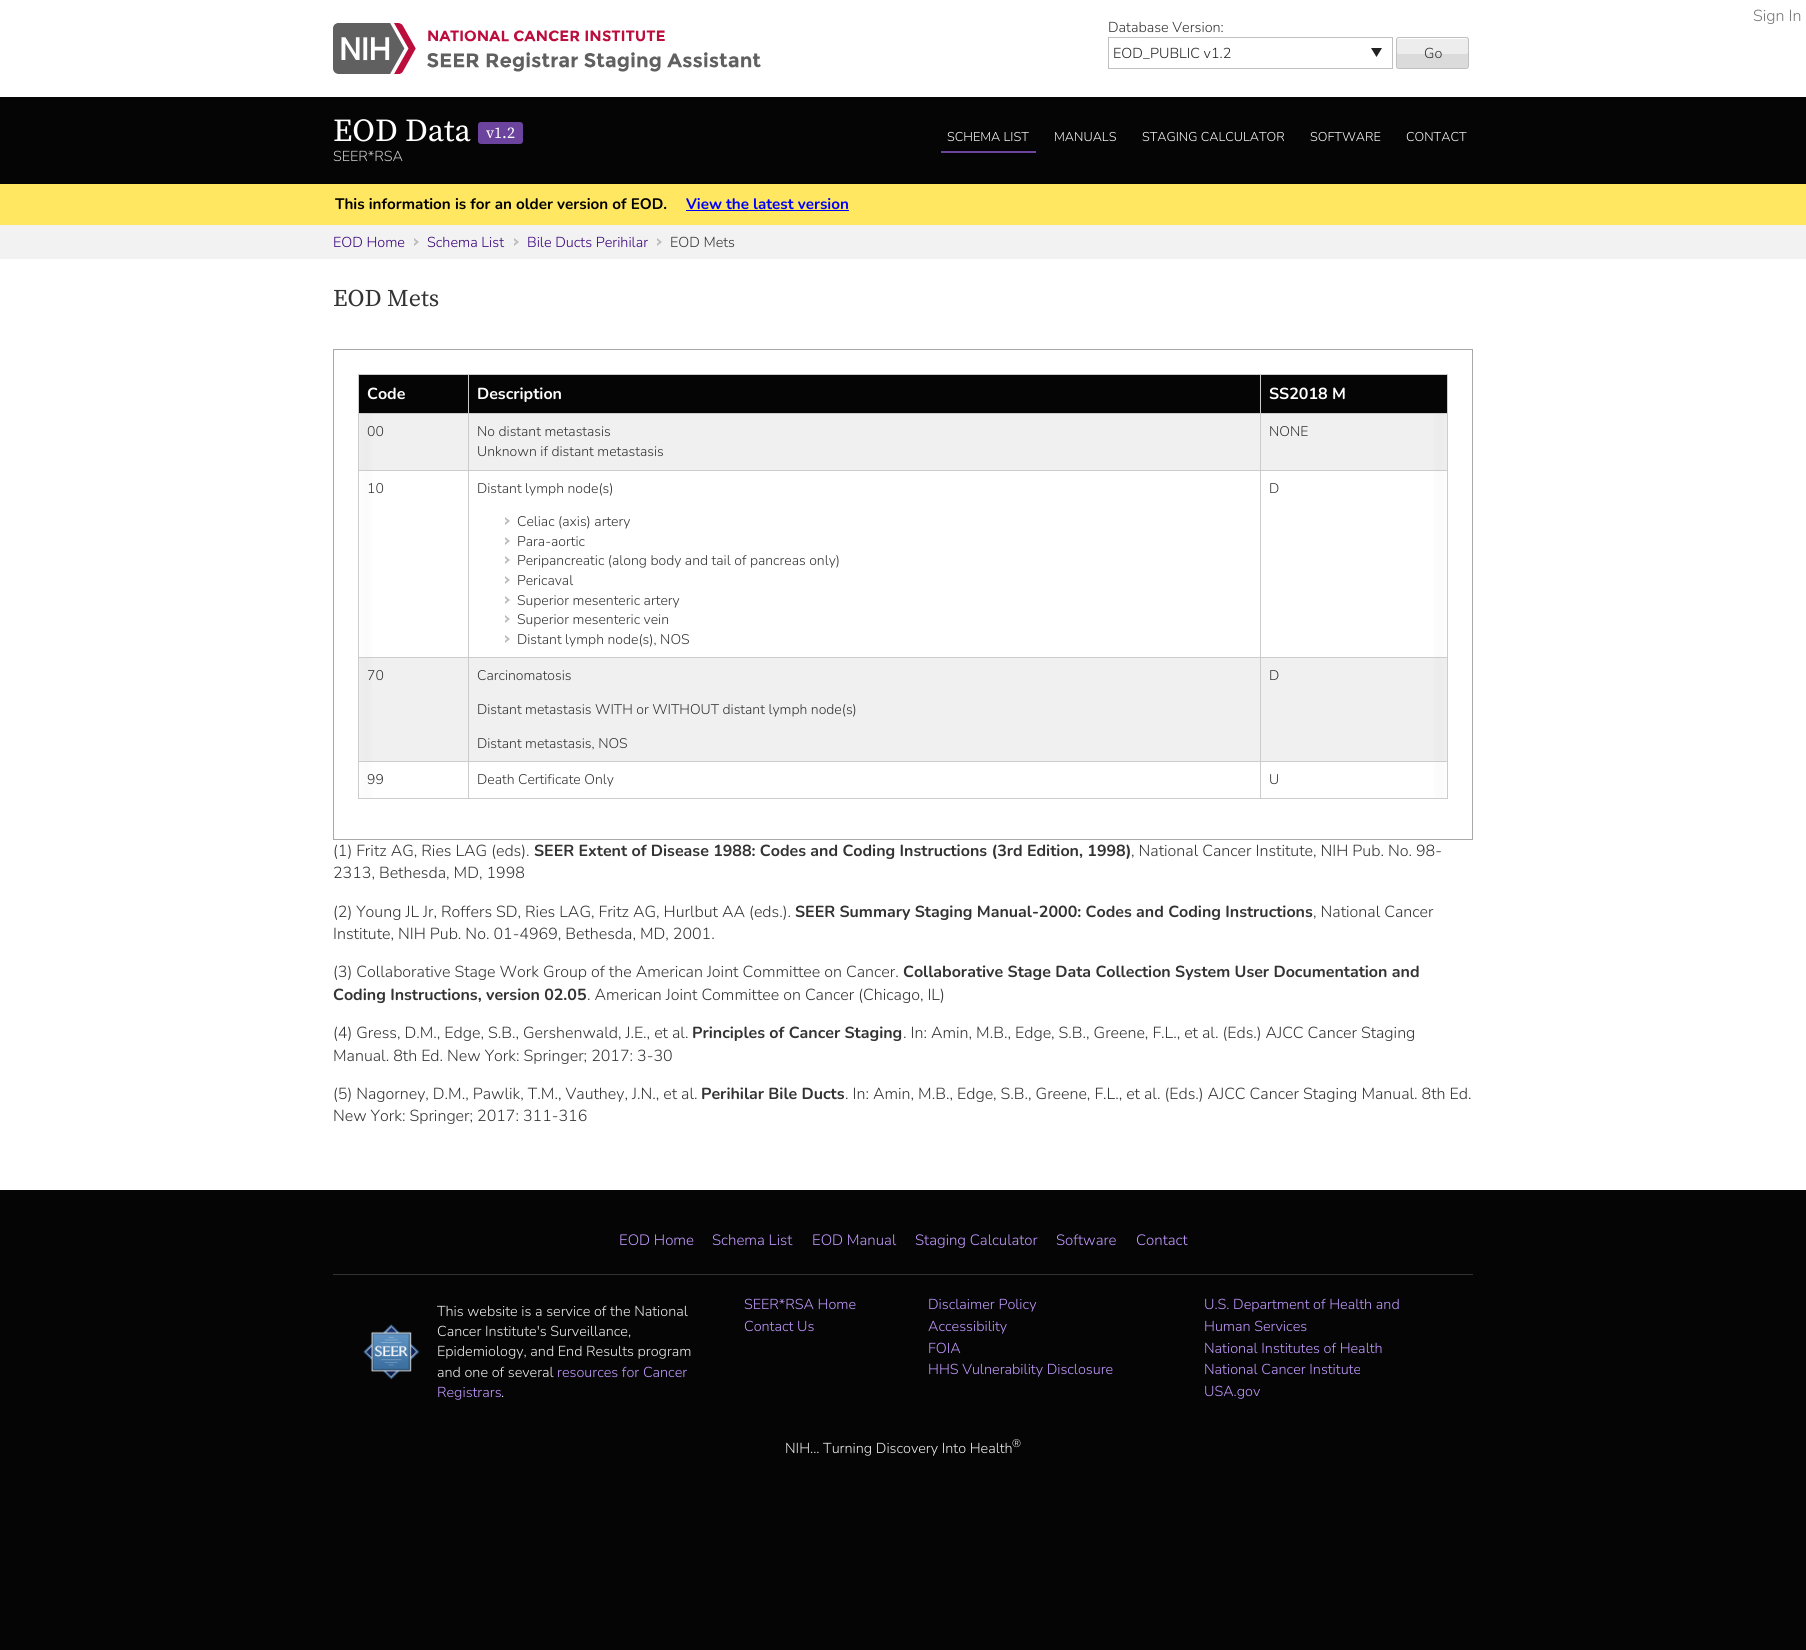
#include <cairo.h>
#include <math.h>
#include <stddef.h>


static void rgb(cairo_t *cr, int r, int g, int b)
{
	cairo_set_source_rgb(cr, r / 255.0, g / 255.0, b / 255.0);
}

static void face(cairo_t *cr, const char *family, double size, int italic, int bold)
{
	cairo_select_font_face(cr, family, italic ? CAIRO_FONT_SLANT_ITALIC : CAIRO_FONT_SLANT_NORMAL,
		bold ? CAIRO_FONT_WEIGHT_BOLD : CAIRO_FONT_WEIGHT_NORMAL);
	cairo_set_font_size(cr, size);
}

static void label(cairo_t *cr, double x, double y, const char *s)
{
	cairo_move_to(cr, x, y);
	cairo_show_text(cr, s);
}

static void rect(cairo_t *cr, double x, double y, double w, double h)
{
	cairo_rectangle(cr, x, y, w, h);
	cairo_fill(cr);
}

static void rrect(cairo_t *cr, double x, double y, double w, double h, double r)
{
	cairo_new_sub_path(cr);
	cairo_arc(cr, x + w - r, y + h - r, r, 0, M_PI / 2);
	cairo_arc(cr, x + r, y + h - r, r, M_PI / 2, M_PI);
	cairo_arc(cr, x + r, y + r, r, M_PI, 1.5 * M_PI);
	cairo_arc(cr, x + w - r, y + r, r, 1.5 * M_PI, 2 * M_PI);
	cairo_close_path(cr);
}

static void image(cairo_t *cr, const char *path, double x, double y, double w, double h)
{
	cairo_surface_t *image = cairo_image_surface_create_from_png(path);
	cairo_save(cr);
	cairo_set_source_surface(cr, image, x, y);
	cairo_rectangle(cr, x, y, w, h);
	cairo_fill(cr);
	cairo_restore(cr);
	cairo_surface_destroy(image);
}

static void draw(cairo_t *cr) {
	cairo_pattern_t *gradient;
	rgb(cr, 5, 5, 5);
	cairo_paint(cr);
	rgb(cr, 255, 255, 255);
	rect(cr, 0, 0, 1806, 97);
	face(cr, "Nunito ExtraLight", 16, 0, 0);
	rgb(cr, 118, 118, 118);
	label(cr, 1753, 21, "Sign In");
	image(cr, "image0.png", 333, 23, 428, 51);
	face(cr, "Nunito ExtraLight", 14.4, 0, 0);
	rgb(cr, 51, 51, 51);
	label(cr, 1108, 32, "Database Version:");
	rgb(cr, 34, 34, 34);
	cairo_new_path(cr);
	cairo_move_to(cr, 1382, 48);
	cairo_line_to(cr, 1376.5, 57);
	cairo_line_to(cr, 1371, 48);
	cairo_close_path(cr);
	cairo_fill(cr);
	cairo_rectangle(cr, 1108.5, 37.5, 284, 31);
	rgb(cr, 192, 192, 192);
	cairo_set_line_width(cr, 1);
	cairo_stroke(cr);
	rgb(cr, 34, 34, 34);
	label(cr, 1113, 58, "EOD_PUBLIC v1.2");
	rgb(cr, 237, 237, 237);
	rrect(cr, 1396, 37, 73, 32, 3);
	cairo_fill(cr);
	rgb(cr, 255, 255, 255);
	cairo_new_path(cr);
	cairo_move_to(cr, 1399, 39);
	cairo_line_to(cr, 1466, 39);
	cairo_curve_to(cr, 1467, 39, 1468, 40, 1468, 41);
	cairo_curve_to(cr, 1468, 35, 1458, 38, 1455, 38);
	cairo_line_to(cr, 1410, 38);
	cairo_curve_to(cr, 1407, 38, 1397, 35, 1397, 41);
	cairo_curve_to(cr, 1397, 40, 1398, 39, 1399, 39);
	cairo_close_path(cr);
	cairo_fill(cr);
	rgb(cr, 219, 219, 219);
	cairo_new_path(cr);
	cairo_move_to(cr, 1397, 52);
	cairo_line_to(cr, 1397, 66);
	cairo_curve_to(cr, 1397, 67, 1398, 68, 1399, 68);
	cairo_line_to(cr, 1466, 68);
	cairo_curve_to(cr, 1467, 68, 1468, 67, 1468, 66);
	cairo_line_to(cr, 1468, 52);
	cairo_curve_to(cr, 1468, 53, 1467, 54, 1466, 54);
	cairo_line_to(cr, 1399, 54);
	cairo_curve_to(cr, 1398, 54, 1397, 53, 1397, 52);
	cairo_close_path(cr);
	cairo_fill(cr);
	rrect(cr, 1396.5, 37.5, 72, 31, 2.5);
	rgb(cr, 192, 192, 192);
	cairo_stroke(cr);
	rgb(cr, 51, 51, 51);
	label(cr, 1424, 58, "Go");
	face(cr, "Source Serif Pro", 32, 0, 0);
	rgb(cr, 255, 255, 255);
	label(cr, 333, 141, "EOD Data");
	rgb(cr, 108, 67, 157);
	rrect(cr, 478, 122, 45, 22, 3);
	cairo_fill(cr);
	face(cr, "Source Serif Pro", 16, 0, 0);
	rgb(cr, 255, 255, 255);
	label(cr, 486, 138, "v1.2");
	face(cr, "Nunito ExtraLight", 14.4, 0, 0);
	rgb(cr, 204, 204, 204);
	label(cr, 333, 161, "SEER*RSA");
	rgb(cr, 108, 67, 157);
	rect(cr, 941, 151, 95, 2);
	face(cr, "Nunito ExtraLight", 12.75, 0, 0);
	rgb(cr, 255, 255, 255);
	label(cr, 947, 141, "SCHEMA LIST");
	label(cr, 1054, 141, "MANUALS");
	label(cr, 1142, 141, "STAGING CALCULATOR");
	label(cr, 1310, 141, "SOFTWARE");
	label(cr, 1406, 141, "CONTACT");
	rgb(cr, 255, 231, 97);
	rect(cr, 0, 184, 1806, 41);
	face(cr, "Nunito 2 ExtraLight", 15.2, 0, 0);
	rgb(cr, 0, 0, 0);
	label(cr, 335, 209, "This information is for an older version of EOD.");
	rgb(cr, 0, 0, 255);
	label(cr, 686, 209, "View the latest version");
	rect(cr, 686, 210, 163, 1);
	rgb(cr, 242, 242, 242);
	rect(cr, 0, 225, 1806, 34);
	image(cr, "image1.png", 414, 238, 5, 8);
	face(cr, "Nunito ExtraLight", 14.4, 0, 0);
	rgb(cr, 55, 0, 122);
	label(cr, 333, 247, "EOD Home");
	image(cr, "image1.png", 514, 238, 5, 8);
	label(cr, 427, 247, "Schema List");
	image(cr, "image1.png", 657, 238, 5, 8);
	label(cr, 527, 247, "Bile Ducts Perihilar");
	rgb(cr, 51, 51, 51);
	label(cr, 670, 247, "EOD Mets");
	rgb(cr, 255, 255, 255);
	rect(cr, 0, 259, 1806, 931);
	face(cr, "Source Serif Pro", 24, 0, 0);
	rgb(cr, 51, 51, 51);
	label(cr, 333, 306, "EOD Mets");
	cairo_rectangle(cr, 333.5, 349.5, 1139, 490);
	rgb(cr, 168, 168, 168);
	cairo_stroke(cr);
	gradient = cairo_pattern_create_linear(1448, 587, 1432, 587);
	cairo_pattern_add_color_stop_rgba(gradient, 0, 0.765, 0.765, 0.773, 1);
	cairo_pattern_add_color_stop_rgba(gradient, 1, 1, 1, 1, 1);
	cairo_set_source(cr, gradient);
	cairo_pattern_destroy(gradient);
	rect(cr, 1433, 414, 14, 384);
	gradient = cairo_pattern_create_linear(358, 587, 374, 587);
	cairo_pattern_add_color_stop_rgba(gradient, 0, 0.765, 0.765, 0.773, 1);
	cairo_pattern_add_color_stop_rgba(gradient, 1, 1, 1, 1, 1);
	cairo_set_source(cr, gradient);
	cairo_pattern_destroy(gradient);
	rect(cr, 359, 414, 14, 384);
	gradient = cairo_pattern_create_linear(1448, 587, 1384, 587);
	cairo_pattern_add_color_stop_rgba(gradient, 0, 1, 1, 1, 1);
	cairo_pattern_add_color_stop_rgba(gradient, 1, 1, 1, 1, 0);
	cairo_set_source(cr, gradient);
	cairo_pattern_destroy(gradient);
	rect(cr, 1433, 414, 14, 384);
	gradient = cairo_pattern_create_linear(358, 587, 422, 587);
	cairo_pattern_add_color_stop_rgba(gradient, 0, 1, 1, 1, 1);
	cairo_pattern_add_color_stop_rgba(gradient, 1, 1, 1, 1, 0);
	cairo_set_source(cr, gradient);
	cairo_pattern_destroy(gradient);
	rect(cr, 359, 414, 14, 384);
	rgb(cr, 5, 5, 5);
	rect(cr, 359, 375, 109, 38);
	rgb(cr, 204, 204, 204);
	rect(cr, 1260, 374, 188, 1);
	rect(cr, 1260, 413, 188, 1);
	rect(cr, 1260, 470, 188, 1);
	rect(cr, 1260, 657, 188, 1);
	rect(cr, 1260, 761, 188, 1);
	rect(cr, 1447, 761, 1, 38);
	rect(cr, 1260, 798, 188, 1);
	rect(cr, 1260, 761, 1, 38);
	rect(cr, 468, 761, 793, 1);
	rect(cr, 1260, 657, 1, 105);
	rect(cr, 468, 657, 793, 1);
	rect(cr, 1260, 470, 1, 188);
	rect(cr, 468, 470, 793, 1);
	rect(cr, 1260, 413, 1, 58);
	rect(cr, 468, 413, 793, 1);
	rect(cr, 1260, 374, 1, 40);
	rect(cr, 468, 374, 793, 1);
	rect(cr, 468, 798, 793, 1);
	rect(cr, 468, 761, 1, 38);
	rect(cr, 358, 761, 111, 1);
	rect(cr, 468, 657, 1, 105);
	rect(cr, 358, 657, 111, 1);
	rect(cr, 468, 470, 1, 188);
	rect(cr, 358, 470, 111, 1);
	rect(cr, 468, 413, 1, 58);
	rect(cr, 358, 413, 111, 1);
	rect(cr, 468, 374, 1, 40);
	rect(cr, 358, 374, 111, 1);
	rect(cr, 358, 798, 111, 1);
	rect(cr, 358, 761, 1, 38);
	rect(cr, 358, 657, 1, 105);
	rect(cr, 358, 470, 1, 188);
	rect(cr, 358, 413, 1, 58);
	rect(cr, 358, 374, 1, 40);
	face(cr, "Nunito 2 ExtraLight", 16, 0, 0);
	rgb(cr, 255, 255, 255);
	label(cr, 367, 399, "Code");
	rgb(cr, 5, 5, 5);
	rect(cr, 469, 375, 791, 38);
	rgb(cr, 255, 255, 255);
	label(cr, 477, 399, "Description");
	rgb(cr, 5, 5, 5);
	rect(cr, 1261, 375, 186, 38);
	rgb(cr, 204, 204, 204);
	rect(cr, 1447, 657, 1, 105);
	rect(cr, 1447, 470, 1, 188);
	rect(cr, 1447, 413, 1, 58);
	rect(cr, 1447, 374, 1, 40);
	rgb(cr, 255, 255, 255);
	label(cr, 1269, 399, "SS2018 M");
	cairo_set_source_rgba(cr, 0, 0, 0, 0.06);
	rect(cr, 359, 414, 109, 56);
	face(cr, "Nunito ExtraLight", 14, 0, 0);
	rgb(cr, 51, 51, 51);
	label(cr, 367, 436, "00");
	rgb(cr, 240, 240, 240);
	rect(cr, 469, 414, 791, 56);
	rgb(cr, 51, 51, 51);
	label(cr, 477, 436, "No distant metastasis");
	label(cr, 477, 456, "Unknown if distant metastasis");
	cairo_set_source_rgba(cr, 0, 0, 0, 0.06);
	rect(cr, 1261, 414, 186, 56);
	rgb(cr, 51, 51, 51);
	label(cr, 1269, 436, "NONE");
	label(cr, 367, 493, "10");
	label(cr, 477, 493, "Distant lymph node(s)");
	image(cr, "image2.png", 505, 517, 5, 8);
	label(cr, 517, 526, "Celiac (axis) artery");
	image(cr, "image2.png", 505, 537, 5, 8);
	label(cr, 517, 546, "Para-aortic");
	image(cr, "image2.png", 505, 556, 5, 8);
	label(cr, 517, 565, "Peripancreatic (along body and tail of pancreas only)");
	image(cr, "image2.png", 505, 576, 5, 8);
	label(cr, 517, 585, "Pericaval");
	image(cr, "image2.png", 505, 596, 5, 8);
	label(cr, 517, 605, "Superior mesenteric artery");
	image(cr, "image2.png", 505, 615, 5, 8);
	label(cr, 517, 624, "Superior mesenteric vein");
	image(cr, "image2.png", 505, 635, 5, 8);
	label(cr, 517, 644, "Distant lymph node(s), NOS");
	label(cr, 1269, 493, "D");
	cairo_set_source_rgba(cr, 0, 0, 0, 0.06);
	rect(cr, 359, 658, 109, 103);
	rgb(cr, 51, 51, 51);
	label(cr, 367, 680, "70");
	rgb(cr, 240, 240, 240);
	rect(cr, 469, 658, 791, 103);
	rgb(cr, 51, 51, 51);
	label(cr, 477, 680, "Carcinomatosis");
	label(cr, 477, 714, "Distant metastasis WITH or WITHOUT distant lymph node(s)");
	label(cr, 477, 748, "Distant metastasis, NOS");
	cairo_set_source_rgba(cr, 0, 0, 0, 0.06);
	rect(cr, 1261, 658, 186, 103);
	rgb(cr, 51, 51, 51);
	label(cr, 1269, 680, "D");
	label(cr, 367, 784, "99");
	label(cr, 477, 784, "Death Certificate Only");
	label(cr, 1269, 784, "U");
	face(cr, "Nunito ExtraLight", 16, 0, 0);
	label(cr, 333, 856, "(1) Fritz AG, Ries LAG (eds).");
	face(cr, "Nunito 2 ExtraLight", 16, 0, 0);
	label(cr, 534, 856, "SEER Extent of Disease 1988: Codes and Coding Instructions (3rd Edition, 1998)");
	face(cr, "Nunito ExtraLight", 16, 0, 0);
	label(cr, 1131, 856, ", National Cancer Institute, NIH Pub. No. 98-");
	label(cr, 333, 878, "2313, Bethesda, MD, 1998");
	label(cr, 333, 917, "(2) Young JL Jr, Roffers SD, Ries LAG, Fritz AG, Hurlbut AA (eds.).");
	face(cr, "Nunito 2 ExtraLight", 16, 0, 0);
	label(cr, 795, 917, "SEER Summary Staging Manual-2000: Codes and Coding Instructions");
	face(cr, "Nunito ExtraLight", 16, 0, 0);
	label(cr, 1313, 917, ", National Cancer");
	label(cr, 333, 939, "Institute, NIH Pub. No. 01-4969, Bethesda, MD, 2001.");
	label(cr, 333, 977, "(3) Collaborative Stage Work Group of the American Joint Committee on Cancer.");
	face(cr, "Nunito 2 ExtraLight", 16, 0, 0);
	label(cr, 903, 977, "Collaborative Stage Data Collection System User Documentation and");
	label(cr, 333, 1000, "Coding Instructions, version 02.05");
	face(cr, "Nunito ExtraLight", 16, 0, 0);
	label(cr, 587, 1000, ". American Joint Committee on Cancer (Chicago, IL)");
	label(cr, 333, 1038, "(4) Gress, D.M., Edge, S.B., Gershenwald, J.E., et al.");
	face(cr, "Nunito 2 ExtraLight", 16, 0, 0);
	label(cr, 692, 1038, "Principles of Cancer Staging");
	face(cr, "Nunito ExtraLight", 16, 0, 0);
	label(cr, 903, 1038, ". In: Amin, M.B., Edge, S.B., Greene, F.L., et al. (Eds.) AJCC Cancer Staging");
	label(cr, 333, 1061, "Manual. 8th Ed. New York: Springer; 2017: 3-30");
	label(cr, 333, 1099, "(5) Nagorney, D.M., Pawlik, T.M., Vauthey, J.N., et al.");
	face(cr, "Nunito 2 ExtraLight", 16, 0, 0);
	label(cr, 701, 1099, "Perihilar Bile Ducts");
	face(cr, "Nunito ExtraLight", 16, 0, 0);
	label(cr, 845, 1099, ". In: Amin, M.B., Edge, S.B., Greene, F.L., et al. (Eds.) AJCC Cancer Staging Manual. 8th Ed.");
	label(cr, 333, 1121, "New York: Springer; 2017: 311-316");
	face(cr, "Nunito ExtraLight", 15, 0, 0);
	rgb(cr, 194, 153, 255);
	label(cr, 619, 1245, "EOD Home");
	label(cr, 712, 1245, "Schema List");
	label(cr, 812, 1245, "EOD Manual");
	label(cr, 915, 1245, "Staging Calculator");
	label(cr, 1056, 1245, "Software");
	label(cr, 1136, 1245, "Contact");
	rgb(cr, 51, 51, 51);
	rect(cr, 333, 1274, 1140, 1);
	image(cr, "image3.png", 363, 1324, 57, 56);
	face(cr, "Nunito ExtraLight", 14.4, 0, 0);
	rgb(cr, 238, 238, 238);
	label(cr, 437, 1316, "This website is a service of the National");
	label(cr, 437, 1336, "Cancer Institute's Surveillance,");
	label(cr, 437, 1356, "Epidemiology, and End Results program");
	label(cr, 437, 1377, "and one of several");
	rgb(cr, 194, 153, 255);
	label(cr, 557, 1377, "resources for Cancer");
	label(cr, 437, 1397, "Registrars");
	rgb(cr, 238, 238, 238);
	label(cr, 501, 1397, ".");
	rgb(cr, 194, 153, 255);
	label(cr, 744, 1309, "SEER*RSA Home");
	label(cr, 744, 1331, "Contact Us");
	label(cr, 928, 1309, "Disclaimer Policy");
	label(cr, 928, 1331, "Accessibility");
	label(cr, 928, 1353, "FOIA");
	label(cr, 928, 1374, "HHS Vulnerability Disclosure");
	label(cr, 1204, 1309, "U.S. Department of Health and");
	label(cr, 1204, 1331, "Human Services");
	label(cr, 1204, 1353, "National Institutes of Health");
	label(cr, 1204, 1374, "National Cancer Institute");
	label(cr, 1204, 1396, "USA.gov");
	rgb(cr, 238, 238, 238);
	label(cr, 785, 1453, "NIH... Turning Discovery Into Health");
	face(cr, "Nunito ExtraLight", 11, 0, 0);
	label(cr, 1012, 1447, "®");
}

int main(void) {
	cairo_surface_t *surface = cairo_image_surface_create(CAIRO_FORMAT_RGB24, 1806, 1650);
	cairo_t *cr = cairo_create(surface);
	cairo_font_options_t *options = cairo_font_options_create();
	cairo_font_options_set_hint_metrics(options, CAIRO_HINT_METRICS_OFF);
	cairo_font_options_set_hint_style(options, CAIRO_HINT_STYLE_NONE);
	cairo_set_font_options(cr, options);
	cairo_set_miter_limit(cr, 4);
	draw(cr);
	cairo_surface_write_to_png(surface, "render.png");
	cairo_font_options_destroy(options);
	cairo_destroy(cr);
	cairo_surface_destroy(surface);
	return 0;
}
